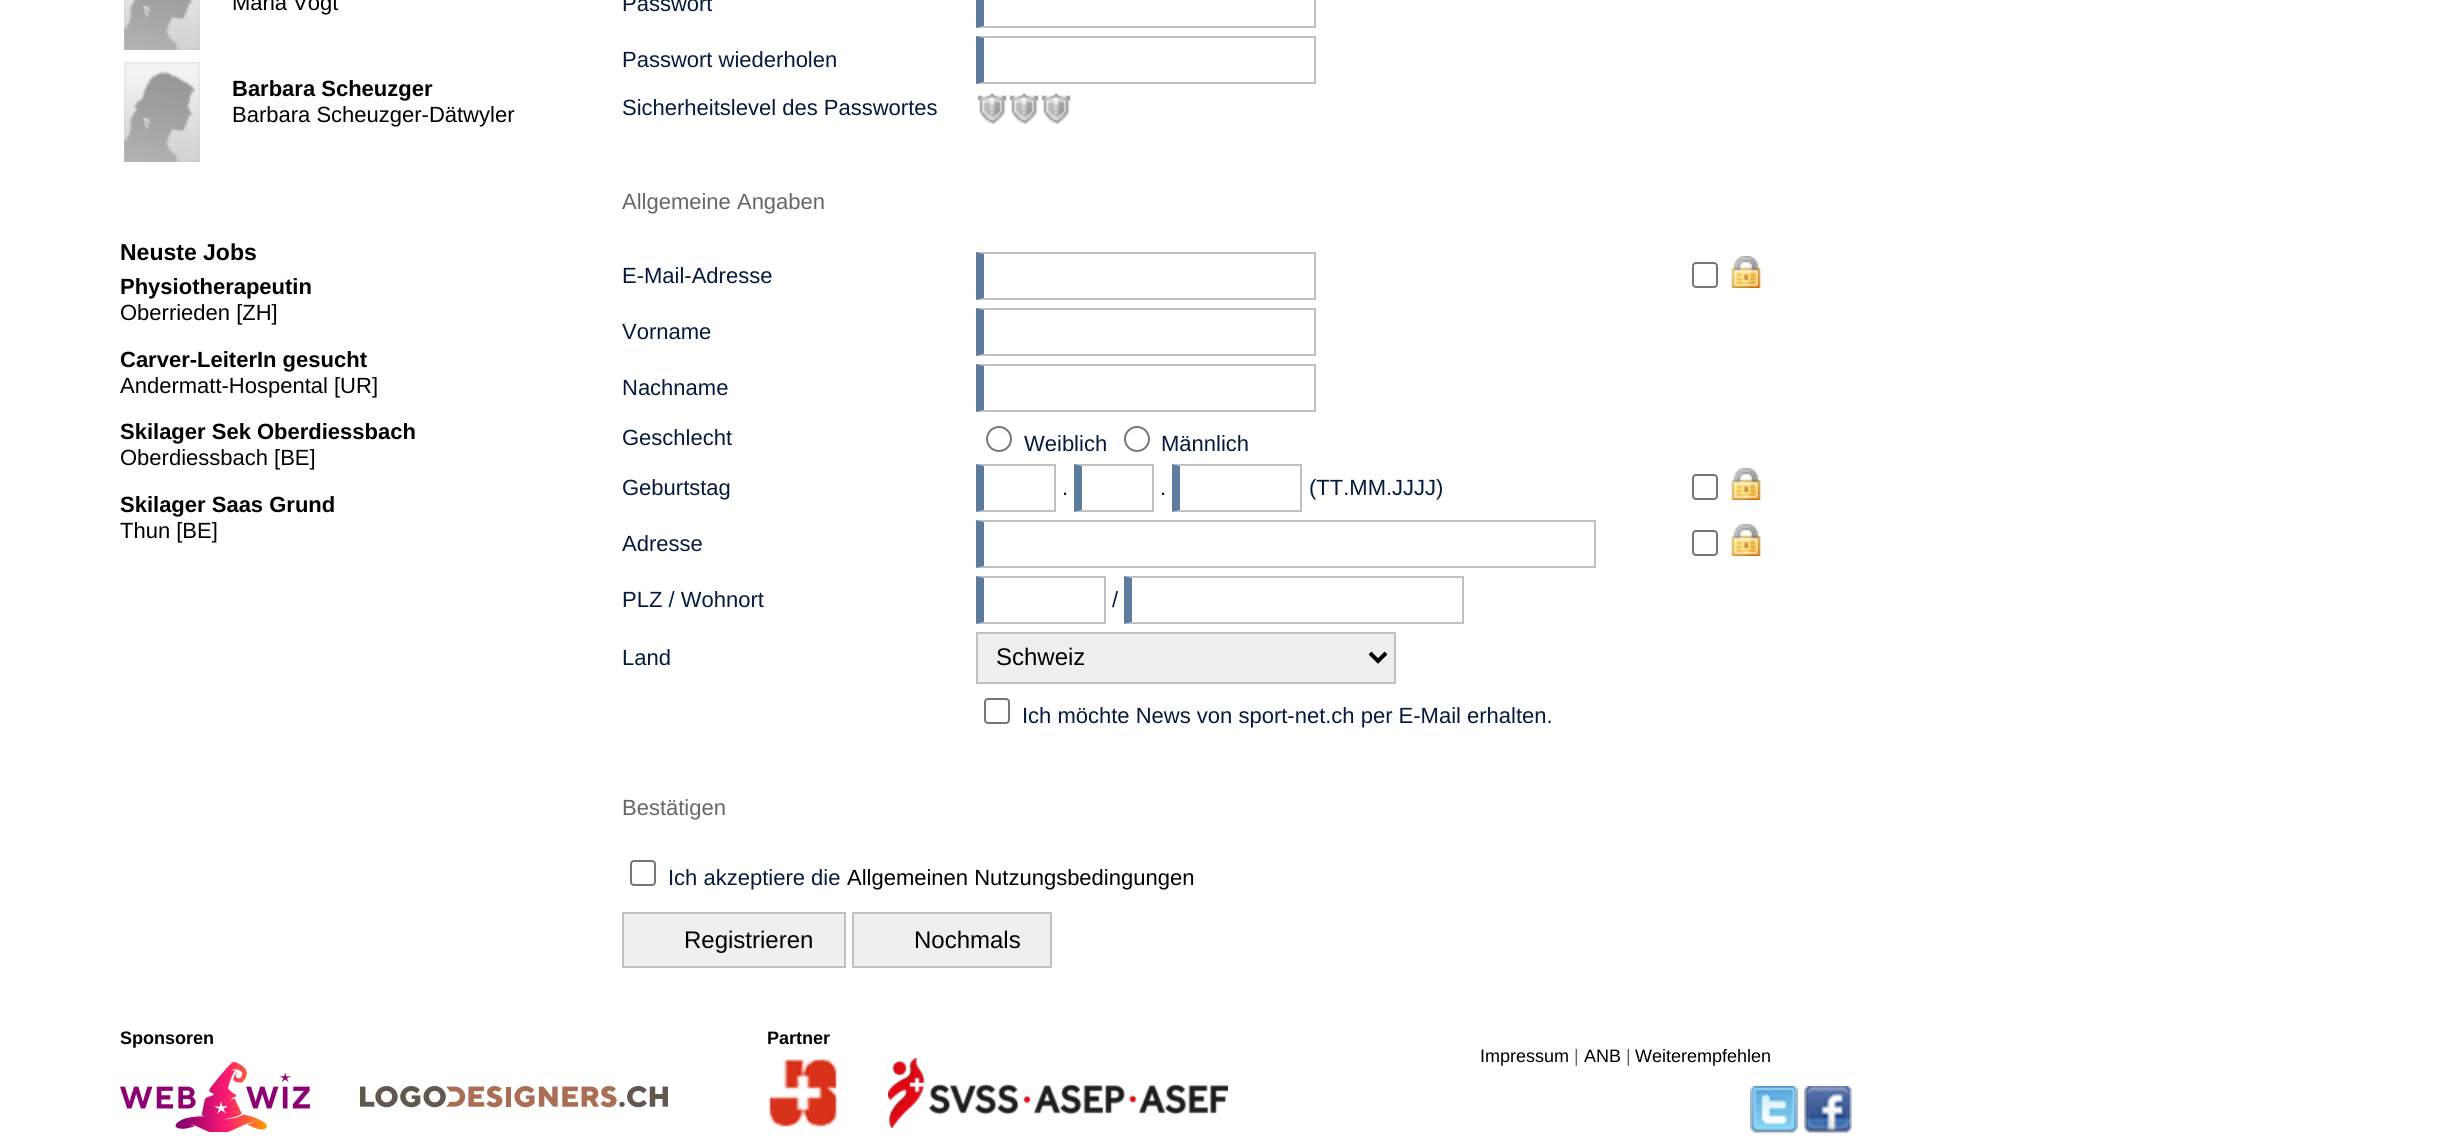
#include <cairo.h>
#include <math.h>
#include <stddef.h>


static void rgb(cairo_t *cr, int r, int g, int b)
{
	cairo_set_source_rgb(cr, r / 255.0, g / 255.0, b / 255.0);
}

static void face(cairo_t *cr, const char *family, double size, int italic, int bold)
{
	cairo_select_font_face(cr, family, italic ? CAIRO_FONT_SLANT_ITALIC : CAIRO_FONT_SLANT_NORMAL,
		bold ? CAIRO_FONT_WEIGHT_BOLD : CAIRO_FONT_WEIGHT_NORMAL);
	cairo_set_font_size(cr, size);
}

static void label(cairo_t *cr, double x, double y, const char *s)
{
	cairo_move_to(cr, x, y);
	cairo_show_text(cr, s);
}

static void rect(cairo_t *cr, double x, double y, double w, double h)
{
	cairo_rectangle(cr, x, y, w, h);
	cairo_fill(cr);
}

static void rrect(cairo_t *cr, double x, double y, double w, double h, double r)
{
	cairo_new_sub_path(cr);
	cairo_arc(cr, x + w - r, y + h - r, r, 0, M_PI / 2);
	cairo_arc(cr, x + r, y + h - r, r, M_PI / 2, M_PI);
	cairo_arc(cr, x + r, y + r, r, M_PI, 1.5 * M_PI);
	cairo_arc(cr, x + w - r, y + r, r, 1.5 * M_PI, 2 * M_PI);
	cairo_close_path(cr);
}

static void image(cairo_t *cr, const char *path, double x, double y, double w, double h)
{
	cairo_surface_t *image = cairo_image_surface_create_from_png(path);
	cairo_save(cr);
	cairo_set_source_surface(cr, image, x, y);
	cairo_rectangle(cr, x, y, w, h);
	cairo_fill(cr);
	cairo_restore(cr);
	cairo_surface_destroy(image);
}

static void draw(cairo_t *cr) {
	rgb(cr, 255, 255, 255);
	cairo_paint(cr);
	image(cr, "image0.png", 124, 0, 76, 50);
	face(cr, "Liberation Sans", 22, 0, 0);
	rgb(cr, 0, 0, 0);
	label(cr, 232, 10, "Maria Vogt");
	image(cr, "image1.png", 124, 62, 76, 100);
	face(cr, "Liberation Sans", 22, 0, 1);
	label(cr, 232, 96, "Barbara Scheuzger");
	face(cr, "Liberation Sans", 22, 0, 0);
	label(cr, 232, 122, "Barbara Scheuzger-Dätwyler");
	face(cr, "Liberation Sans", 23, 0, 1);
	label(cr, 120, 260, "Neuste Jobs");
	face(cr, "Liberation Sans", 22, 0, 1);
	label(cr, 120, 294, "Physiotherapeutin");
	face(cr, "Liberation Sans", 22, 0, 0);
	label(cr, 120, 320, "Oberrieden [ZH]");
	face(cr, "Liberation Sans", 22, 0, 1);
	label(cr, 120, 367, "Carver-LeiterIn gesucht");
	face(cr, "Liberation Sans", 22, 0, 0);
	label(cr, 120, 393, "Andermatt-Hospental [UR]");
	face(cr, "Liberation Sans", 22, 0, 1);
	label(cr, 120, 439, "Skilager Sek Oberdiessbach");
	face(cr, "Liberation Sans", 22, 0, 0);
	label(cr, 120, 465, "Oberdiessbach [BE]");
	face(cr, "Liberation Sans", 22, 0, 1);
	label(cr, 120, 512, "Skilager Saas Grund");
	face(cr, "Liberation Sans", 22, 0, 0);
	label(cr, 120, 538, "Thun [BE]");
	rgb(cr, 6, 26, 61);
	label(cr, 622, 11, "Passwort");
	rgb(cr, 192, 192, 192);
	rect(cr, 1314, 0, 2, 28);
	cairo_new_path(cr);
	cairo_move_to(cr, 1316, 28);
	cairo_line_to(cr, 976, 28);
	cairo_line_to(cr, 984, 26);
	cairo_line_to(cr, 1314, 26);
	cairo_close_path(cr);
	cairo_fill(cr);
	rgb(cr, 94, 124, 158);
	cairo_new_path(cr);
	cairo_move_to(cr, 976, 28);
	cairo_line_to(cr, 976, -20);
	cairo_line_to(cr, 984, -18);
	cairo_line_to(cr, 984, 26);
	cairo_close_path(cr);
	cairo_fill(cr);
	rgb(cr, 6, 26, 61);
	label(cr, 622, 67, "Passwort wiederholen");
	rgb(cr, 192, 192, 192);
	cairo_new_path(cr);
	cairo_move_to(cr, 976, 36);
	cairo_line_to(cr, 1316, 36);
	cairo_line_to(cr, 1314, 38);
	cairo_line_to(cr, 984, 38);
	cairo_close_path(cr);
	cairo_fill(cr);
	rect(cr, 1314, 36, 2, 48);
	cairo_new_path(cr);
	cairo_move_to(cr, 1316, 84);
	cairo_line_to(cr, 976, 84);
	cairo_line_to(cr, 984, 82);
	cairo_line_to(cr, 1314, 82);
	cairo_close_path(cr);
	cairo_fill(cr);
	rgb(cr, 94, 124, 158);
	cairo_new_path(cr);
	cairo_move_to(cr, 976, 84);
	cairo_line_to(cr, 976, 36);
	cairo_line_to(cr, 984, 38);
	cairo_line_to(cr, 984, 82);
	cairo_close_path(cr);
	cairo_fill(cr);
	rgb(cr, 6, 26, 61);
	label(cr, 622, 115, "Sicherheitslevel des Passwortes");
	image(cr, "image2.png", 977, 93, 30, 31);
	image(cr, "image2.png", 1009, 93, 30, 31);
	image(cr, "image2.png", 1041, 93, 30, 31);
	rgb(cr, 102, 102, 102);
	label(cr, 622, 209, "Allgemeine Angaben");
	rgb(cr, 6, 26, 61);
	label(cr, 622, 283, "E-Mail-Adresse");
	rgb(cr, 192, 192, 192);
	cairo_new_path(cr);
	cairo_move_to(cr, 976, 252);
	cairo_line_to(cr, 1316, 252);
	cairo_line_to(cr, 1314, 254);
	cairo_line_to(cr, 984, 254);
	cairo_close_path(cr);
	cairo_fill(cr);
	rect(cr, 1314, 252, 2, 48);
	cairo_new_path(cr);
	cairo_move_to(cr, 1316, 300);
	cairo_line_to(cr, 976, 300);
	cairo_line_to(cr, 984, 298);
	cairo_line_to(cr, 1314, 298);
	cairo_close_path(cr);
	cairo_fill(cr);
	rgb(cr, 94, 124, 158);
	cairo_new_path(cr);
	cairo_move_to(cr, 976, 300);
	cairo_line_to(cr, 976, 252);
	cairo_line_to(cr, 984, 254);
	cairo_line_to(cr, 984, 298);
	cairo_close_path(cr);
	cairo_fill(cr);
	rrect(cr, 1693, 263, 24, 24, 3);
	rgb(cr, 118, 118, 118);
	cairo_stroke(cr);
	image(cr, "image3.png", 1731, 256, 30, 32);
	rgb(cr, 6, 26, 61);
	label(cr, 622, 339, "Vorname");
	rgb(cr, 192, 192, 192);
	cairo_new_path(cr);
	cairo_move_to(cr, 976, 308);
	cairo_line_to(cr, 1316, 308);
	cairo_line_to(cr, 1314, 310);
	cairo_line_to(cr, 984, 310);
	cairo_close_path(cr);
	cairo_fill(cr);
	rect(cr, 1314, 308, 2, 48);
	cairo_new_path(cr);
	cairo_move_to(cr, 1316, 356);
	cairo_line_to(cr, 976, 356);
	cairo_line_to(cr, 984, 354);
	cairo_line_to(cr, 1314, 354);
	cairo_close_path(cr);
	cairo_fill(cr);
	rgb(cr, 94, 124, 158);
	cairo_new_path(cr);
	cairo_move_to(cr, 976, 356);
	cairo_line_to(cr, 976, 308);
	cairo_line_to(cr, 984, 310);
	cairo_line_to(cr, 984, 354);
	cairo_close_path(cr);
	cairo_fill(cr);
	rgb(cr, 6, 26, 61);
	label(cr, 622, 395, "Nachname");
	rgb(cr, 192, 192, 192);
	cairo_new_path(cr);
	cairo_move_to(cr, 976, 364);
	cairo_line_to(cr, 1316, 364);
	cairo_line_to(cr, 1314, 366);
	cairo_line_to(cr, 984, 366);
	cairo_close_path(cr);
	cairo_fill(cr);
	rect(cr, 1314, 364, 2, 48);
	cairo_new_path(cr);
	cairo_move_to(cr, 1316, 412);
	cairo_line_to(cr, 976, 412);
	cairo_line_to(cr, 984, 410);
	cairo_line_to(cr, 1314, 410);
	cairo_close_path(cr);
	cairo_fill(cr);
	rgb(cr, 94, 124, 158);
	cairo_new_path(cr);
	cairo_move_to(cr, 976, 412);
	cairo_line_to(cr, 976, 364);
	cairo_line_to(cr, 984, 366);
	cairo_line_to(cr, 984, 410);
	cairo_close_path(cr);
	cairo_fill(cr);
	rgb(cr, 6, 26, 61);
	label(cr, 622, 445, "Geschlecht");
	cairo_new_path(cr);
	cairo_arc(cr, 999, 439, 12, 0, 2 * M_PI);
	rgb(cr, 118, 118, 118);
	cairo_stroke(cr);
	rgb(cr, 6, 26, 61);
	label(cr, 1024, 451, "Weiblich");
	cairo_new_path(cr);
	cairo_arc(cr, 1137, 439, 12, 0, 2 * M_PI);
	rgb(cr, 118, 118, 118);
	cairo_stroke(cr);
	rgb(cr, 6, 26, 61);
	label(cr, 1161, 451, "Männlich");
	label(cr, 622, 495, "Geburtstag");
	rgb(cr, 192, 192, 192);
	cairo_new_path(cr);
	cairo_move_to(cr, 976, 464);
	cairo_line_to(cr, 1056, 464);
	cairo_line_to(cr, 1054, 466);
	cairo_line_to(cr, 984, 466);
	cairo_close_path(cr);
	cairo_fill(cr);
	rect(cr, 1054, 464, 2, 48);
	cairo_new_path(cr);
	cairo_move_to(cr, 1056, 512);
	cairo_line_to(cr, 976, 512);
	cairo_line_to(cr, 984, 510);
	cairo_line_to(cr, 1054, 510);
	cairo_close_path(cr);
	cairo_fill(cr);
	rgb(cr, 94, 124, 158);
	cairo_new_path(cr);
	cairo_move_to(cr, 976, 512);
	cairo_line_to(cr, 976, 464);
	cairo_line_to(cr, 984, 466);
	cairo_line_to(cr, 984, 510);
	cairo_close_path(cr);
	cairo_fill(cr);
	rgb(cr, 6, 26, 61);
	label(cr, 1062, 495, ".");
	rgb(cr, 192, 192, 192);
	cairo_new_path(cr);
	cairo_move_to(cr, 1074, 464);
	cairo_line_to(cr, 1154, 464);
	cairo_line_to(cr, 1152, 466);
	cairo_line_to(cr, 1082, 466);
	cairo_close_path(cr);
	cairo_fill(cr);
	rect(cr, 1152, 464, 2, 48);
	cairo_new_path(cr);
	cairo_move_to(cr, 1154, 512);
	cairo_line_to(cr, 1074, 512);
	cairo_line_to(cr, 1082, 510);
	cairo_line_to(cr, 1152, 510);
	cairo_close_path(cr);
	cairo_fill(cr);
	rgb(cr, 94, 124, 158);
	cairo_new_path(cr);
	cairo_move_to(cr, 1074, 512);
	cairo_line_to(cr, 1074, 464);
	cairo_line_to(cr, 1082, 466);
	cairo_line_to(cr, 1082, 510);
	cairo_close_path(cr);
	cairo_fill(cr);
	rgb(cr, 6, 26, 61);
	label(cr, 1160, 495, ".");
	rgb(cr, 192, 192, 192);
	cairo_new_path(cr);
	cairo_move_to(cr, 1172, 464);
	cairo_line_to(cr, 1302, 464);
	cairo_line_to(cr, 1300, 466);
	cairo_line_to(cr, 1180, 466);
	cairo_close_path(cr);
	cairo_fill(cr);
	rect(cr, 1300, 464, 2, 48);
	cairo_new_path(cr);
	cairo_move_to(cr, 1302, 512);
	cairo_line_to(cr, 1172, 512);
	cairo_line_to(cr, 1180, 510);
	cairo_line_to(cr, 1300, 510);
	cairo_close_path(cr);
	cairo_fill(cr);
	rgb(cr, 94, 124, 158);
	cairo_new_path(cr);
	cairo_move_to(cr, 1172, 512);
	cairo_line_to(cr, 1172, 464);
	cairo_line_to(cr, 1180, 466);
	cairo_line_to(cr, 1180, 510);
	cairo_close_path(cr);
	cairo_fill(cr);
	rgb(cr, 6, 26, 61);
	label(cr, 1309, 495, "(TT.MM.JJJJ)");
	rrect(cr, 1693, 475, 24, 24, 3);
	rgb(cr, 118, 118, 118);
	cairo_stroke(cr);
	image(cr, "image3.png", 1731, 468, 30, 32);
	rgb(cr, 6, 26, 61);
	label(cr, 622, 551, "Adresse");
	rgb(cr, 192, 192, 192);
	cairo_new_path(cr);
	cairo_move_to(cr, 976, 520);
	cairo_line_to(cr, 1596, 520);
	cairo_line_to(cr, 1594, 522);
	cairo_line_to(cr, 984, 522);
	cairo_close_path(cr);
	cairo_fill(cr);
	rect(cr, 1594, 520, 2, 48);
	cairo_new_path(cr);
	cairo_move_to(cr, 1596, 568);
	cairo_line_to(cr, 976, 568);
	cairo_line_to(cr, 984, 566);
	cairo_line_to(cr, 1594, 566);
	cairo_close_path(cr);
	cairo_fill(cr);
	rgb(cr, 94, 124, 158);
	cairo_new_path(cr);
	cairo_move_to(cr, 976, 568);
	cairo_line_to(cr, 976, 520);
	cairo_line_to(cr, 984, 522);
	cairo_line_to(cr, 984, 566);
	cairo_close_path(cr);
	cairo_fill(cr);
	rrect(cr, 1693, 531, 24, 24, 3);
	rgb(cr, 118, 118, 118);
	cairo_stroke(cr);
	image(cr, "image3.png", 1731, 524, 30, 32);
	rgb(cr, 6, 26, 61);
	label(cr, 622, 607, "PLZ / Wohnort");
	rgb(cr, 192, 192, 192);
	cairo_new_path(cr);
	cairo_move_to(cr, 976, 576);
	cairo_line_to(cr, 1106, 576);
	cairo_line_to(cr, 1104, 578);
	cairo_line_to(cr, 984, 578);
	cairo_close_path(cr);
	cairo_fill(cr);
	rect(cr, 1104, 576, 2, 48);
	cairo_new_path(cr);
	cairo_move_to(cr, 1106, 624);
	cairo_line_to(cr, 976, 624);
	cairo_line_to(cr, 984, 622);
	cairo_line_to(cr, 1104, 622);
	cairo_close_path(cr);
	cairo_fill(cr);
	rgb(cr, 94, 124, 158);
	cairo_new_path(cr);
	cairo_move_to(cr, 976, 624);
	cairo_line_to(cr, 976, 576);
	cairo_line_to(cr, 984, 578);
	cairo_line_to(cr, 984, 622);
	cairo_close_path(cr);
	cairo_fill(cr);
	rgb(cr, 6, 26, 61);
	label(cr, 1112, 607, "/");
	rgb(cr, 192, 192, 192);
	cairo_new_path(cr);
	cairo_move_to(cr, 1124, 576);
	cairo_line_to(cr, 1464, 576);
	cairo_line_to(cr, 1462, 578);
	cairo_line_to(cr, 1132, 578);
	cairo_close_path(cr);
	cairo_fill(cr);
	rect(cr, 1462, 576, 2, 48);
	cairo_new_path(cr);
	cairo_move_to(cr, 1464, 624);
	cairo_line_to(cr, 1124, 624);
	cairo_line_to(cr, 1132, 622);
	cairo_line_to(cr, 1462, 622);
	cairo_close_path(cr);
	cairo_fill(cr);
	rgb(cr, 94, 124, 158);
	cairo_new_path(cr);
	cairo_move_to(cr, 1124, 624);
	cairo_line_to(cr, 1124, 576);
	cairo_line_to(cr, 1132, 578);
	cairo_line_to(cr, 1132, 622);
	cairo_close_path(cr);
	cairo_fill(cr);
	rgb(cr, 6, 26, 61);
	label(cr, 622, 665, "Land");
	rgb(cr, 239, 239, 239);
	cairo_rectangle(cr, 977, 633, 418, 50);
	cairo_fill_preserve(cr);
	rgb(cr, 192, 192, 192);
	cairo_stroke(cr);
	cairo_new_path(cr);
	cairo_move_to(cr, 1370, 653);
	cairo_line_to(cr, 1378, 661);
	cairo_line_to(cr, 1386, 653);
	rgb(cr, 0, 0, 0);
	cairo_set_line_width(cr, 4);
	cairo_stroke(cr);
	face(cr, "Liberation Sans", 24, 0, 0);
	label(cr, 996, 665, "Schweiz");
	rrect(cr, 985, 699, 24, 24, 3);
	rgb(cr, 118, 118, 118);
	cairo_set_line_width(cr, 2);
	cairo_stroke(cr);
	face(cr, "Liberation Sans", 22, 0, 0);
	rgb(cr, 6, 26, 61);
	label(cr, 1022, 723, "Ich möchte News von sport-net.ch per E-Mail erhalten.");
	rgb(cr, 102, 102, 102);
	label(cr, 622, 815, "Bestätigen");
	rrect(cr, 631, 861, 24, 24, 3);
	rgb(cr, 118, 118, 118);
	cairo_stroke(cr);
	rgb(cr, 6, 26, 61);
	label(cr, 668, 885, "Ich akzeptiere die");
	rgb(cr, 0, 0, 0);
	label(cr, 847, 885, "Allgemeinen Nutzungsbedingungen");
	rgb(cr, 239, 239, 239);
	cairo_rectangle(cr, 623, 913, 222, 54);
	cairo_fill_preserve(cr);
	rgb(cr, 192, 192, 192);
	cairo_stroke(cr);
	face(cr, "Liberation Sans", 24, 0, 0);
	rgb(cr, 0, 0, 0);
	label(cr, 684, 948, "Registrieren");
	rgb(cr, 239, 239, 239);
	cairo_rectangle(cr, 853, 913, 198, 54);
	cairo_fill_preserve(cr);
	rgb(cr, 192, 192, 192);
	cairo_stroke(cr);
	rgb(cr, 0, 0, 0);
	label(cr, 914, 948, "Nochmals");
	face(cr, "Liberation Sans", 18, 0, 1);
	label(cr, 120, 1044, "Sponsoren");
	label(cr, 767, 1044, "Partner");
	image(cr, "image4.png", 120, 1062, 190, 70);
	image(cr, "image5.png", 360, 1086, 308, 22);
	image(cr, "image6.png", 769, 1059, 68, 68);
	image(cr, "image7.png", 888, 1058, 340, 70);
	face(cr, "Liberation Sans", 18, 0, 0);
	label(cr, 1480, 1062, "Impressum");
	rgb(cr, 102, 102, 102);
	label(cr, 1574, 1062, "|");
	rgb(cr, 0, 0, 0);
	label(cr, 1584, 1062, "ANB");
	rgb(cr, 102, 102, 102);
	label(cr, 1626, 1062, "|");
	rgb(cr, 0, 0, 0);
	label(cr, 1635, 1062, "Weiterempfehlen");
	image(cr, "image8.png", 1750, 1086, 48, 48);
	image(cr, "image9.png", 1804, 1086, 48, 48);
}

int main(void) {
	cairo_surface_t *surface = cairo_image_surface_create(CAIRO_FORMAT_RGB24, 2460, 1141);
	cairo_t *cr = cairo_create(surface);
	cairo_font_options_t *options = cairo_font_options_create();
	cairo_font_options_set_hint_metrics(options, CAIRO_HINT_METRICS_OFF);
	cairo_font_options_set_hint_style(options, CAIRO_HINT_STYLE_NONE);
	cairo_set_font_options(cr, options);
	cairo_set_miter_limit(cr, 4);
	draw(cr);
	cairo_surface_write_to_png(surface, "render.png");
	cairo_font_options_destroy(options);
	cairo_destroy(cr);
	cairo_surface_destroy(surface);
	return 0;
}
